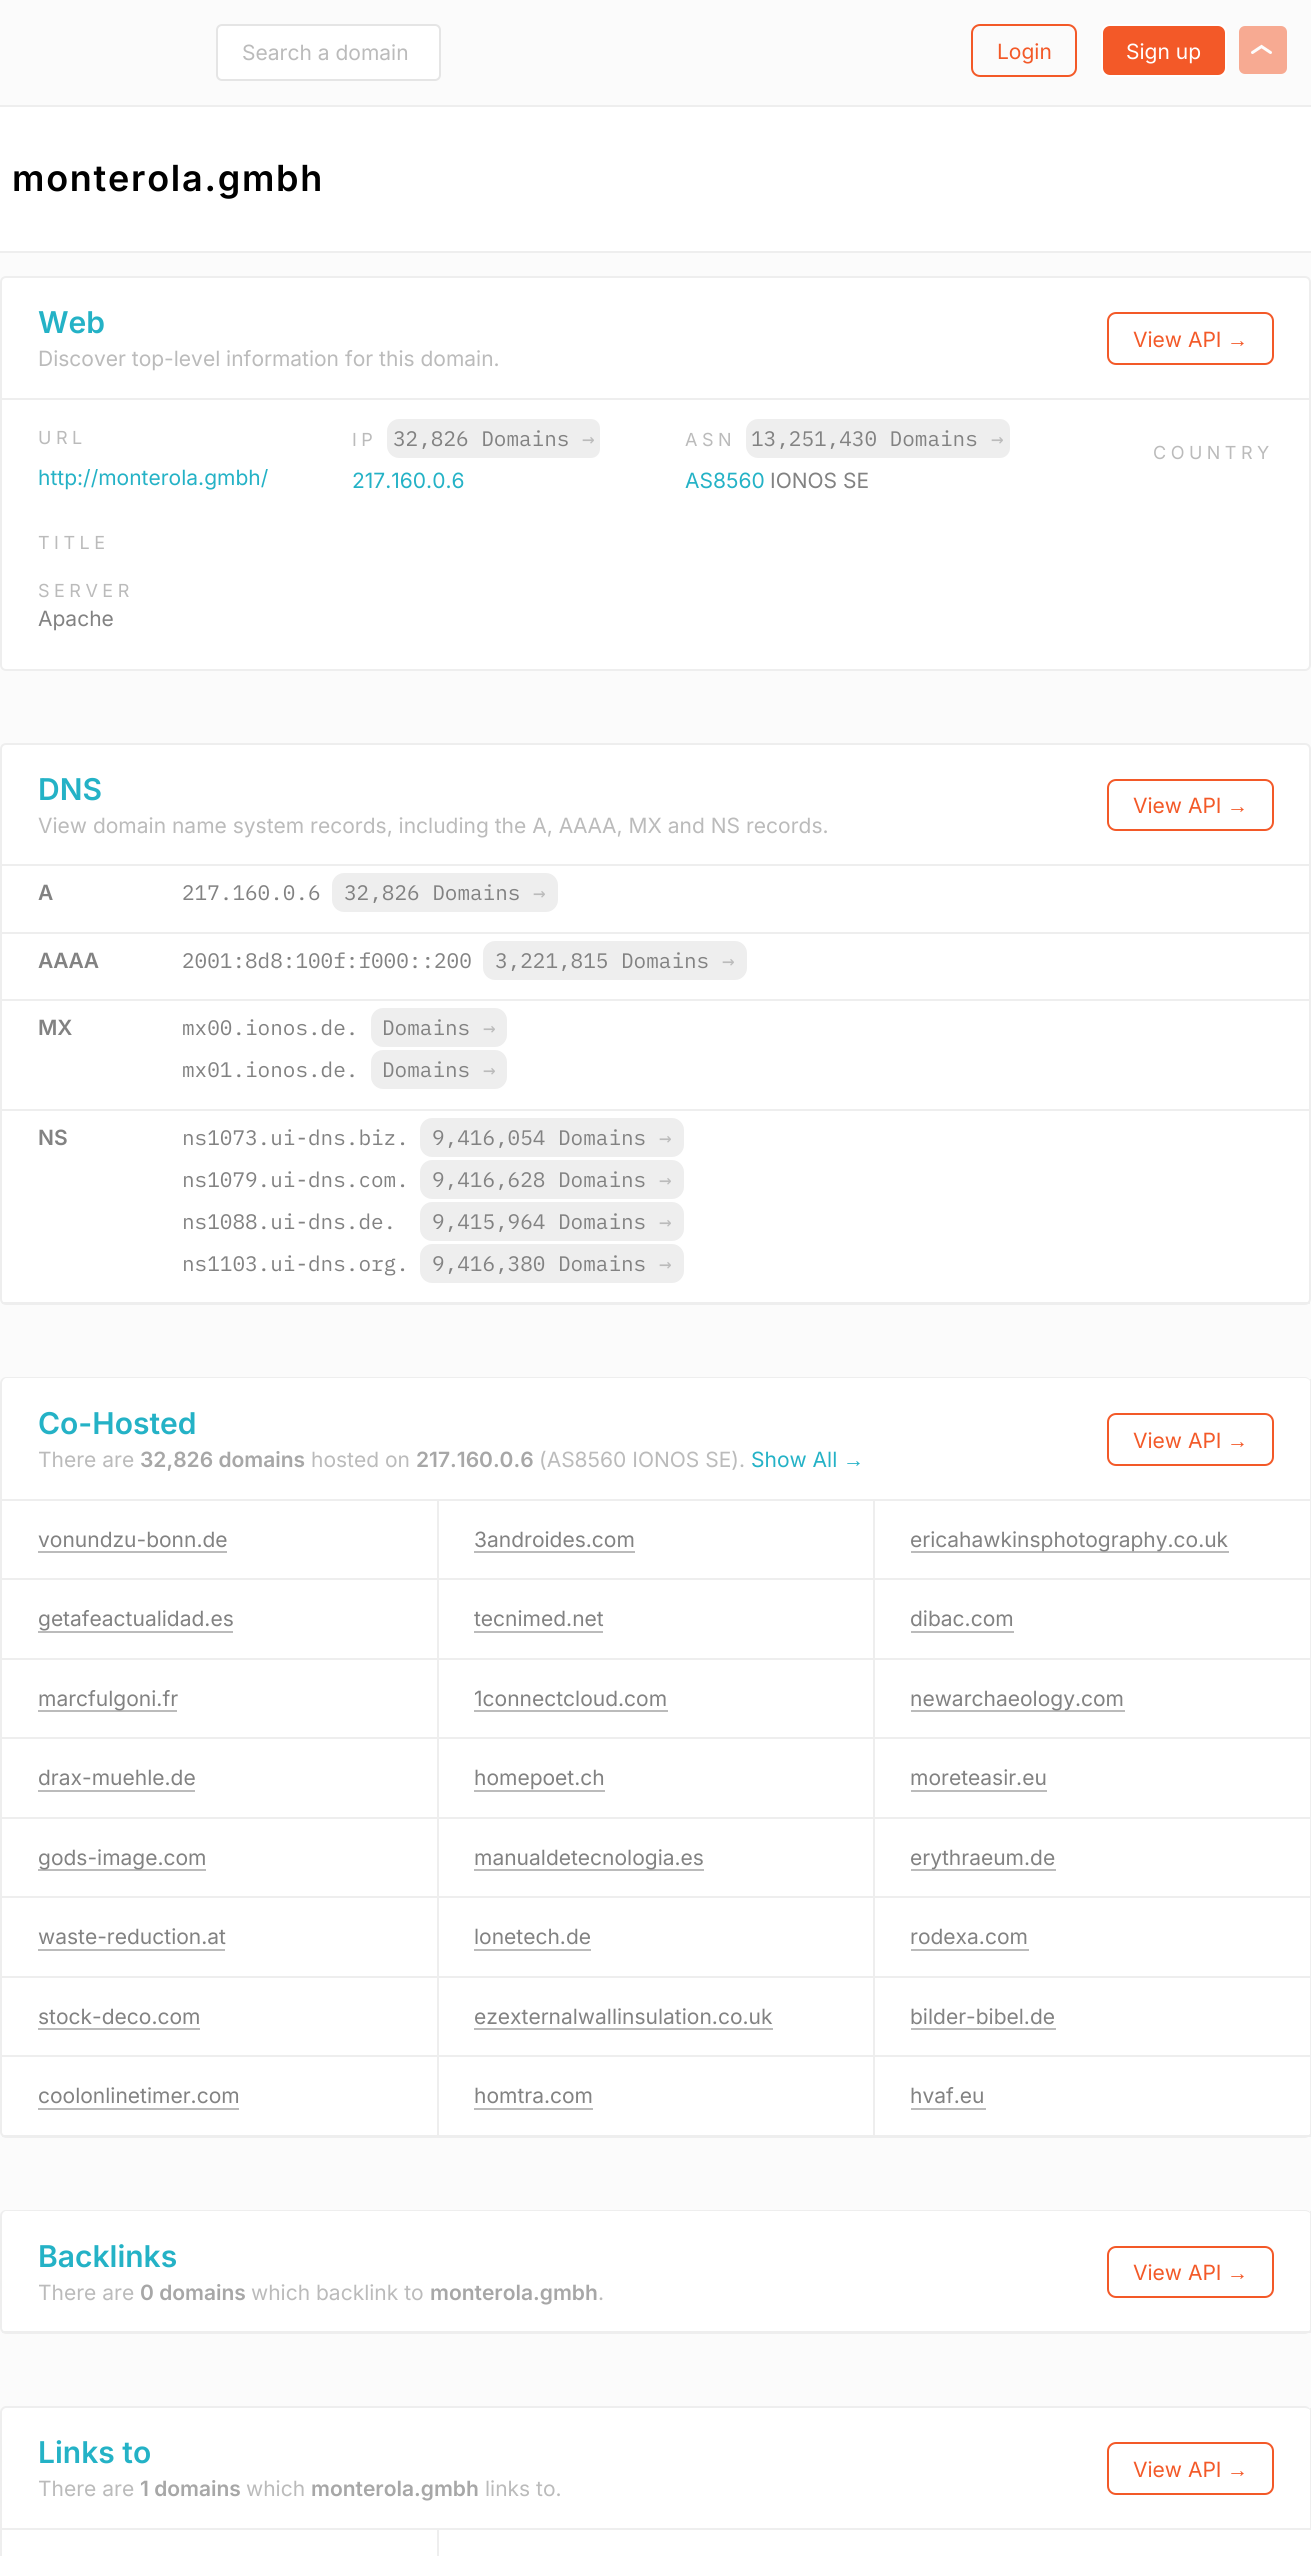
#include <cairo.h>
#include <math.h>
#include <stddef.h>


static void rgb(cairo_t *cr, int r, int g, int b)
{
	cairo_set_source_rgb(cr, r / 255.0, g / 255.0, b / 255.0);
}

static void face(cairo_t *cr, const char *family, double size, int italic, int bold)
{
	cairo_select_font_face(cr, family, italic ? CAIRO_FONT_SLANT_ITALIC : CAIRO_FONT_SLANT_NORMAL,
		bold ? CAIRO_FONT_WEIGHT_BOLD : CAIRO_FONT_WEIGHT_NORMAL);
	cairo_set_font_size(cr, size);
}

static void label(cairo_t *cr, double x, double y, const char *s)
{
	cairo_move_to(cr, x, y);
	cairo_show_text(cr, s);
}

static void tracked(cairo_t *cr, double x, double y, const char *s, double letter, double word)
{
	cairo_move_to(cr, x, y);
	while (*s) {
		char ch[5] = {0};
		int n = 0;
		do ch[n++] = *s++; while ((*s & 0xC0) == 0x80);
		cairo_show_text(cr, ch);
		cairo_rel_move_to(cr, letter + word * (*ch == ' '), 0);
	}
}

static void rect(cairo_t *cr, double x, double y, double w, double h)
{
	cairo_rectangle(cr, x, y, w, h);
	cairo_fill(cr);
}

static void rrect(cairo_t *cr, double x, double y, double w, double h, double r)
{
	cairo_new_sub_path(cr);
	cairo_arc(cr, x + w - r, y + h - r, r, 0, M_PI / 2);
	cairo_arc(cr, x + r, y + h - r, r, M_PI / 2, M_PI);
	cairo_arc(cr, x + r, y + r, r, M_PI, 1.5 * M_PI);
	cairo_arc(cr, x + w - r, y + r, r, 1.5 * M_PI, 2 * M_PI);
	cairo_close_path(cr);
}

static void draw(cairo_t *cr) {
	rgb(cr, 255, 255, 255);
	cairo_paint(cr);
	rgb(cr, 251, 251, 251);
	rect(cr, 0, 0, 1311, 105);
	rgb(cr, 238, 238, 238);
	rect(cr, 0, 105, 1311, 2);
	rgb(cr, 255, 255, 255);
	rrect(cr, 217, 25, 223, 55, 5);
	cairo_fill_preserve(cr);
	rgb(cr, 229, 229, 229);
	cairo_stroke(cr);
	face(cr, "Inter", 21, 0, 0);
	rgb(cr, 187, 187, 187);
	label(cr, 242, 60, "Search a domain");
	rrect(cr, 972, 25, 104, 51, 8);
	rgb(cr, 243, 89, 40);
	cairo_stroke(cr);
	label(cr, 997, 59, "Login");
	rrect(cr, 1102, 25, 124, 51, 8);
	cairo_fill_preserve(cr);
	rgb(cr, 255, 255, 255);
	cairo_stroke(cr);
	label(cr, 1126, 59, "Sign up");
	rgb(cr, 247, 170, 146);
	rrect(cr, 1239, 26, 48, 48, 6);
	cairo_fill(cr);
	cairo_new_path(cr);
	cairo_move_to(cr, 1252.5, 52.5);
	cairo_line_to(cr, 1261.5, 46.5);
	cairo_line_to(cr, 1270.5, 52.5);
	rgb(cr, 253, 253, 253);
	cairo_set_line_width(cr, 3);
	cairo_set_line_cap(cr, CAIRO_LINE_CAP_ROUND);
	cairo_stroke(cr);
	face(cr, "Inter SemiBold", 36, 0, 0);
	rgb(cr, 0, 0, 0);
	tracked(cr, 12, 191, "monterola.gmbh", 1.75, 0);
	rgb(cr, 251, 251, 251);
	rect(cr, 0, 253, 1311, 2159);
	rgb(cr, 238, 238, 238);
	rect(cr, 0, 251, 1311, 2);
	rgb(cr, 255, 255, 255);
	rrect(cr, 1, 277, 1309, 393, 5);
	cairo_fill_preserve(cr);
	rgb(cr, 238, 238, 238);
	cairo_set_line_width(cr, 2);
	cairo_set_line_cap(cr, CAIRO_LINE_CAP_BUTT);
	cairo_stroke(cr);
	rect(cr, 2, 398, 1308, 2);
	face(cr, "Inter SemiBold", 30, 0, 0);
	rgb(cr, 36, 178, 198);
	label(cr, 38, 333, "Web");
	face(cr, "Inter", 21, 0, 0);
	rgb(cr, 187, 187, 187);
	label(cr, 38, 366, "Discover top-level information for this domain.");
	rrect(cr, 1108, 313, 165, 51, 8);
	rgb(cr, 243, 89, 40);
	cairo_stroke(cr);
	label(cr, 1133, 347, "View API");
	face(cr, "Liberation Sans", 21, 0, 0);
	label(cr, 1227, 347, "→");
	face(cr, "Inter", 18, 0, 0);
	rgb(cr, 187, 187, 187);
	tracked(cr, 38, 444, "URL", 4.5, 0);
	face(cr, "Inter", 21, 0, 0);
	rgb(cr, 36, 178, 198);
	label(cr, 38, 485, "http://monterola.gmbh/");
	face(cr, "Inter", 18, 0, 0);
	rgb(cr, 187, 187, 187);
	tracked(cr, 352, 446, "IP", 4.5, 0);
	rgb(cr, 238, 238, 238);
	cairo_new_path(cr);
	cairo_move_to(cr, 399, 419);
	cairo_line_to(cr, 582, 419);
	cairo_line_to(cr, 582, 458);
	cairo_line_to(cr, 399, 458);
	cairo_curve_to(cr, 392.5, 458, 387, 452.5, 387, 446);
	cairo_line_to(cr, 387, 431);
	cairo_curve_to(cr, 387, 424.5, 392.5, 419, 399, 419);
	cairo_close_path(cr);
	cairo_fill(cr);
	face(cr, "IBM Plex Mono", 21, 0, 0);
	rgb(cr, 130, 130, 130);
	label(cr, 393, 446, "32,826 Domains");
	rgb(cr, 238, 238, 238);
	cairo_new_path(cr);
	cairo_move_to(cr, 582, 419);
	cairo_line_to(cr, 591, 419);
	cairo_curve_to(cr, 596, 419, 600, 423, 600, 428);
	cairo_line_to(cr, 600, 449);
	cairo_curve_to(cr, 600, 454, 596, 458, 591, 458);
	cairo_line_to(cr, 582, 458);
	cairo_close_path(cr);
	cairo_fill(cr);
	face(cr, "DejaVu Sans Mono", 21, 0, 0);
	rgb(cr, 187, 187, 187);
	label(cr, 582, 446, "→");
	face(cr, "Inter", 21, 0, 0);
	rgb(cr, 36, 178, 198);
	label(cr, 352, 488, "217.160.0.6");
	face(cr, "Inter", 18, 0, 0);
	rgb(cr, 187, 187, 187);
	tracked(cr, 685, 446, "ASN", 4.5, 0);
	rgb(cr, 238, 238, 238);
	cairo_new_path(cr);
	cairo_move_to(cr, 758, 419);
	cairo_line_to(cr, 990, 419);
	cairo_line_to(cr, 990, 458);
	cairo_line_to(cr, 758, 458);
	cairo_curve_to(cr, 751.5, 458, 746, 452.5, 746, 446);
	cairo_line_to(cr, 746, 431);
	cairo_curve_to(cr, 746, 424.5, 751.5, 419, 758, 419);
	cairo_close_path(cr);
	cairo_fill(cr);
	face(cr, "IBM Plex Mono", 21, 0, 0);
	rgb(cr, 130, 130, 130);
	label(cr, 751, 446, "13,251,430 Domains");
	rgb(cr, 238, 238, 238);
	cairo_new_path(cr);
	cairo_move_to(cr, 990, 419);
	cairo_line_to(cr, 1000, 419);
	cairo_curve_to(cr, 1005.5, 419, 1010, 423.5, 1010, 429);
	cairo_line_to(cr, 1010, 448);
	cairo_curve_to(cr, 1010, 453.5, 1005.5, 458, 1000, 458);
	cairo_line_to(cr, 990, 458);
	cairo_close_path(cr);
	cairo_fill(cr);
	face(cr, "DejaVu Sans Mono", 21, 0, 0);
	rgb(cr, 187, 187, 187);
	label(cr, 991, 446, "→");
	face(cr, "Inter", 21, 0, 0);
	rgb(cr, 36, 178, 198);
	label(cr, 685, 488, "AS8560");
	rgb(cr, 130, 130, 130);
	label(cr, 770, 488, "IONOS SE");
	face(cr, "Inter", 18, 0, 0);
	rgb(cr, 187, 187, 187);
	tracked(cr, 1153, 459, "COUNTRY", 4.5, 0);
	tracked(cr, 38, 549, "TITLE", 4.5, 0);
	tracked(cr, 38, 597, "SERVER", 4.5, 0);
	face(cr, "Inter", 21, 0, 0);
	rgb(cr, 130, 130, 130);
	label(cr, 38, 626, "Apache");
	rgb(cr, 255, 255, 255);
	rrect(cr, 1, 744, 1309, 560, 5);
	cairo_fill_preserve(cr);
	rgb(cr, 238, 238, 238);
	cairo_stroke(cr);
	rect(cr, 2, 864, 1308, 2);
	face(cr, "Inter SemiBold", 30, 0, 0);
	rgb(cr, 36, 178, 198);
	label(cr, 38, 800, "DNS");
	face(cr, "Inter", 21, 0, 0);
	rgb(cr, 187, 187, 187);
	label(cr, 38, 833, "View domain name system records, including the A, AAAA, MX and NS records.");
	rrect(cr, 1108, 780, 165, 50, 8);
	rgb(cr, 243, 89, 40);
	cairo_stroke(cr);
	label(cr, 1133, 813, "View API");
	face(cr, "Liberation Sans", 21, 0, 0);
	label(cr, 1227, 813, "→");
	rgb(cr, 238, 238, 238);
	rect(cr, 2, 932, 1308, 2);
	face(cr, "Inter SemiBold", 21, 0, 0);
	rgb(cr, 130, 130, 130);
	label(cr, 38, 900, "A");
	face(cr, "IBM Plex Mono", 21, 0, 0);
	label(cr, 182, 900, "217.160.0.6");
	rgb(cr, 238, 238, 238);
	cairo_new_path(cr);
	cairo_move_to(cr, 344, 873);
	cairo_line_to(cr, 533, 873);
	cairo_line_to(cr, 533, 912);
	cairo_line_to(cr, 344, 912);
	cairo_curve_to(cr, 337.5, 912, 332, 906.5, 332, 900);
	cairo_line_to(cr, 332, 885);
	cairo_curve_to(cr, 332, 878.5, 337.5, 873, 344, 873);
	cairo_close_path(cr);
	cairo_fill(cr);
	rgb(cr, 130, 130, 130);
	label(cr, 344, 900, "32,826 Domains");
	rgb(cr, 238, 238, 238);
	cairo_new_path(cr);
	cairo_move_to(cr, 533, 873);
	cairo_line_to(cr, 546, 873);
	cairo_curve_to(cr, 552.5, 873, 558, 878.5, 558, 885);
	cairo_line_to(cr, 558, 900);
	cairo_curve_to(cr, 558, 906.5, 552.5, 912, 546, 912);
	cairo_line_to(cr, 533, 912);
	cairo_close_path(cr);
	cairo_fill(cr);
	face(cr, "DejaVu Sans Mono", 21, 0, 0);
	rgb(cr, 187, 187, 187);
	label(cr, 533, 900, "→");
	rgb(cr, 238, 238, 238);
	rect(cr, 2, 999, 1308, 2);
	face(cr, "Inter SemiBold", 21, 0, 0);
	rgb(cr, 130, 130, 130);
	label(cr, 38, 968, "AAAA");
	face(cr, "IBM Plex Mono", 21, 0, 0);
	label(cr, 182, 968, "2001:8d8:100f:f000::200");
	rgb(cr, 238, 238, 238);
	cairo_new_path(cr);
	cairo_move_to(cr, 495, 941);
	cairo_line_to(cr, 722, 941);
	cairo_line_to(cr, 722, 980);
	cairo_line_to(cr, 495, 980);
	cairo_curve_to(cr, 488.5, 980, 483, 974.5, 483, 968);
	cairo_line_to(cr, 483, 953);
	cairo_curve_to(cr, 483, 946.5, 488.5, 941, 495, 941);
	cairo_close_path(cr);
	cairo_fill(cr);
	rgb(cr, 130, 130, 130);
	label(cr, 495, 968, "3,221,815 Domains");
	rgb(cr, 238, 238, 238);
	cairo_new_path(cr);
	cairo_move_to(cr, 722, 941);
	cairo_line_to(cr, 735, 941);
	cairo_curve_to(cr, 741.5, 941, 747, 946.5, 747, 953);
	cairo_line_to(cr, 747, 968);
	cairo_curve_to(cr, 747, 974.5, 741.5, 980, 735, 980);
	cairo_line_to(cr, 722, 980);
	cairo_close_path(cr);
	cairo_fill(cr);
	face(cr, "DejaVu Sans Mono", 21, 0, 0);
	rgb(cr, 187, 187, 187);
	label(cr, 722, 968, "→");
	rgb(cr, 238, 238, 238);
	rect(cr, 2, 1109, 1308, 2);
	face(cr, "Inter SemiBold", 21, 0, 0);
	rgb(cr, 130, 130, 130);
	label(cr, 38, 1035, "MX");
	face(cr, "IBM Plex Mono", 21, 0, 0);
	label(cr, 182, 1035, "mx00.ionos.de.");
	rgb(cr, 238, 238, 238);
	cairo_new_path(cr);
	cairo_move_to(cr, 383, 1008);
	cairo_line_to(cr, 483, 1008);
	cairo_line_to(cr, 483, 1047);
	cairo_line_to(cr, 383, 1047);
	cairo_curve_to(cr, 376.5, 1047, 371, 1041.5, 371, 1035);
	cairo_line_to(cr, 371, 1020);
	cairo_curve_to(cr, 371, 1013.5, 376.5, 1008, 383, 1008);
	cairo_close_path(cr);
	cairo_fill(cr);
	rgb(cr, 130, 130, 130);
	label(cr, 382, 1035, "Domains");
	rgb(cr, 238, 238, 238);
	cairo_new_path(cr);
	cairo_move_to(cr, 483, 1008);
	cairo_line_to(cr, 495, 1008);
	cairo_curve_to(cr, 501.5, 1008, 507, 1013.5, 507, 1020);
	cairo_line_to(cr, 507, 1035);
	cairo_curve_to(cr, 507, 1041.5, 501.5, 1047, 495, 1047);
	cairo_line_to(cr, 483, 1047);
	cairo_close_path(cr);
	cairo_fill(cr);
	face(cr, "DejaVu Sans Mono", 21, 0, 0);
	rgb(cr, 187, 187, 187);
	label(cr, 483, 1035, "→");
	face(cr, "IBM Plex Mono", 21, 0, 0);
	rgb(cr, 130, 130, 130);
	label(cr, 182, 1077, "mx01.ionos.de.");
	rgb(cr, 238, 238, 238);
	cairo_new_path(cr);
	cairo_move_to(cr, 383, 1050);
	cairo_line_to(cr, 483, 1050);
	cairo_line_to(cr, 483, 1089);
	cairo_line_to(cr, 383, 1089);
	cairo_curve_to(cr, 376.5, 1089, 371, 1083.5, 371, 1077);
	cairo_line_to(cr, 371, 1062);
	cairo_curve_to(cr, 371, 1055.5, 376.5, 1050, 383, 1050);
	cairo_close_path(cr);
	cairo_fill(cr);
	rgb(cr, 130, 130, 130);
	label(cr, 382, 1077, "Domains");
	rgb(cr, 238, 238, 238);
	cairo_new_path(cr);
	cairo_move_to(cr, 483, 1050);
	cairo_line_to(cr, 495, 1050);
	cairo_curve_to(cr, 501.5, 1050, 507, 1055.5, 507, 1062);
	cairo_line_to(cr, 507, 1077);
	cairo_curve_to(cr, 507, 1083.5, 501.5, 1089, 495, 1089);
	cairo_line_to(cr, 483, 1089);
	cairo_close_path(cr);
	cairo_fill(cr);
	face(cr, "DejaVu Sans Mono", 21, 0, 0);
	rgb(cr, 187, 187, 187);
	label(cr, 483, 1077, "→");
	rgb(cr, 238, 238, 238);
	rect(cr, 2, 1302, 1308, 2);
	face(cr, "Inter SemiBold", 21, 0, 0);
	rgb(cr, 130, 130, 130);
	label(cr, 38, 1145, "NS");
	face(cr, "IBM Plex Mono", 21, 0, 0);
	label(cr, 182, 1145, "ns1073.ui-dns.biz.");
	rgb(cr, 238, 238, 238);
	cairo_new_path(cr);
	cairo_move_to(cr, 432, 1118);
	cairo_line_to(cr, 659, 1118);
	cairo_line_to(cr, 659, 1157);
	cairo_line_to(cr, 432, 1157);
	cairo_curve_to(cr, 425.5, 1157, 420, 1151.5, 420, 1145);
	cairo_line_to(cr, 420, 1130);
	cairo_curve_to(cr, 420, 1123.5, 425.5, 1118, 432, 1118);
	cairo_close_path(cr);
	cairo_fill(cr);
	rgb(cr, 130, 130, 130);
	label(cr, 432, 1145, "9,416,054 Domains");
	rgb(cr, 238, 238, 238);
	cairo_new_path(cr);
	cairo_move_to(cr, 659, 1118);
	cairo_line_to(cr, 672, 1118);
	cairo_curve_to(cr, 678.5, 1118, 684, 1123.5, 684, 1130);
	cairo_line_to(cr, 684, 1145);
	cairo_curve_to(cr, 684, 1151.5, 678.5, 1157, 672, 1157);
	cairo_line_to(cr, 659, 1157);
	cairo_close_path(cr);
	cairo_fill(cr);
	face(cr, "DejaVu Sans Mono", 21, 0, 0);
	rgb(cr, 187, 187, 187);
	label(cr, 659, 1145, "→");
	face(cr, "IBM Plex Mono", 21, 0, 0);
	rgb(cr, 130, 130, 130);
	label(cr, 182, 1187, "ns1079.ui-dns.com.");
	rgb(cr, 238, 238, 238);
	cairo_new_path(cr);
	cairo_move_to(cr, 432, 1160);
	cairo_line_to(cr, 659, 1160);
	cairo_line_to(cr, 659, 1199);
	cairo_line_to(cr, 432, 1199);
	cairo_curve_to(cr, 425.5, 1199, 420, 1193.5, 420, 1187);
	cairo_line_to(cr, 420, 1172);
	cairo_curve_to(cr, 420, 1165.5, 425.5, 1160, 432, 1160);
	cairo_close_path(cr);
	cairo_fill(cr);
	rgb(cr, 130, 130, 130);
	label(cr, 432, 1187, "9,416,628 Domains");
	rgb(cr, 238, 238, 238);
	cairo_new_path(cr);
	cairo_move_to(cr, 659, 1160);
	cairo_line_to(cr, 672, 1160);
	cairo_curve_to(cr, 678.5, 1160, 684, 1165.5, 684, 1172);
	cairo_line_to(cr, 684, 1187);
	cairo_curve_to(cr, 684, 1193.5, 678.5, 1199, 672, 1199);
	cairo_line_to(cr, 659, 1199);
	cairo_close_path(cr);
	cairo_fill(cr);
	face(cr, "DejaVu Sans Mono", 21, 0, 0);
	rgb(cr, 187, 187, 187);
	label(cr, 659, 1187, "→");
	face(cr, "IBM Plex Mono", 21, 0, 0);
	rgb(cr, 130, 130, 130);
	label(cr, 182, 1229, "ns1088.ui-dns.de.");
	rgb(cr, 238, 238, 238);
	cairo_new_path(cr);
	cairo_move_to(cr, 432, 1202);
	cairo_line_to(cr, 659, 1202);
	cairo_line_to(cr, 659, 1241);
	cairo_line_to(cr, 432, 1241);
	cairo_curve_to(cr, 425.5, 1241, 420, 1235.5, 420, 1229);
	cairo_line_to(cr, 420, 1214);
	cairo_curve_to(cr, 420, 1207.5, 425.5, 1202, 432, 1202);
	cairo_close_path(cr);
	cairo_fill(cr);
	rgb(cr, 130, 130, 130);
	label(cr, 432, 1229, "9,415,964 Domains");
	rgb(cr, 238, 238, 238);
	cairo_new_path(cr);
	cairo_move_to(cr, 659, 1202);
	cairo_line_to(cr, 672, 1202);
	cairo_curve_to(cr, 678.5, 1202, 684, 1207.5, 684, 1214);
	cairo_line_to(cr, 684, 1229);
	cairo_curve_to(cr, 684, 1235.5, 678.5, 1241, 672, 1241);
	cairo_line_to(cr, 659, 1241);
	cairo_close_path(cr);
	cairo_fill(cr);
	face(cr, "DejaVu Sans Mono", 21, 0, 0);
	rgb(cr, 187, 187, 187);
	label(cr, 659, 1229, "→");
	face(cr, "IBM Plex Mono", 21, 0, 0);
	rgb(cr, 130, 130, 130);
	label(cr, 182, 1271, "ns1103.ui-dns.org.");
	rgb(cr, 238, 238, 238);
	cairo_new_path(cr);
	cairo_move_to(cr, 432, 1244);
	cairo_line_to(cr, 659, 1244);
	cairo_line_to(cr, 659, 1283);
	cairo_line_to(cr, 432, 1283);
	cairo_curve_to(cr, 425.5, 1283, 420, 1277.5, 420, 1271);
	cairo_line_to(cr, 420, 1256);
	cairo_curve_to(cr, 420, 1249.5, 425.5, 1244, 432, 1244);
	cairo_close_path(cr);
	cairo_fill(cr);
	rgb(cr, 130, 130, 130);
	label(cr, 432, 1271, "9,416,380 Domains");
	rgb(cr, 238, 238, 238);
	cairo_new_path(cr);
	cairo_move_to(cr, 659, 1244);
	cairo_line_to(cr, 672, 1244);
	cairo_curve_to(cr, 678.5, 1244, 684, 1249.5, 684, 1256);
	cairo_line_to(cr, 684, 1271);
	cairo_curve_to(cr, 684, 1277.5, 678.5, 1283, 672, 1283);
	cairo_line_to(cr, 659, 1283);
	cairo_close_path(cr);
	cairo_fill(cr);
	face(cr, "DejaVu Sans Mono", 21, 0, 0);
	rgb(cr, 187, 187, 187);
	label(cr, 659, 1271, "→");
	rgb(cr, 255, 255, 255);
	cairo_new_path(cr);
	cairo_move_to(cr, 6, 1378);
	cairo_line_to(cr, 1305, 1378);
	cairo_curve_to(cr, 1308, 1378, 1311, 1381, 1311, 1383);
	cairo_line_to(cr, 1311, 2132);
	cairo_curve_to(cr, 1311, 2134, 1308, 2136, 1305, 2136);
	cairo_line_to(cr, 6, 2136);
	cairo_curve_to(cr, 4, 2136, 2, 2134, 2, 2132);
	cairo_line_to(cr, 2, 1383);
	cairo_curve_to(cr, 2, 1381, 4, 1378, 6, 1378);
	cairo_close_path(cr);
	cairo_fill(cr);
	rgb(cr, 238, 238, 238);
	cairo_set_fill_rule(cr, CAIRO_FILL_RULE_EVEN_ODD);
	cairo_new_path(cr);
	cairo_move_to(cr, 6, 1377);
	cairo_line_to(cr, 1305, 1377);
	cairo_curve_to(cr, 1308, 1377, 1311, 1380, 1311, 1383);
	cairo_line_to(cr, 1311, 2132);
	cairo_curve_to(cr, 1311, 2135, 1308, 2138, 1305, 2138);
	cairo_line_to(cr, 6, 2138);
	cairo_curve_to(cr, 3, 2138, 0, 2135, 0, 2132);
	cairo_line_to(cr, 0, 1383);
	cairo_curve_to(cr, 0, 1380, 3, 1377, 6, 1377);
	cairo_close_path(cr);
	cairo_move_to(cr, 6, 1378);
	cairo_line_to(cr, 1305, 1378);
	cairo_curve_to(cr, 1308, 1378, 1311, 1381, 1311, 1383);
	cairo_line_to(cr, 1311, 2132);
	cairo_curve_to(cr, 1311, 2134, 1308, 2136, 1305, 2136);
	cairo_line_to(cr, 6, 2136);
	cairo_curve_to(cr, 4, 2136, 2, 2134, 2, 2132);
	cairo_line_to(cr, 2, 1383);
	cairo_curve_to(cr, 2, 1381, 4, 1378, 6, 1378);
	cairo_close_path(cr);
	cairo_fill(cr);
	rect(cr, 1310, 1379, 1, 121);
	rect(cr, 2, 1499, 1309, 2);
	face(cr, "Inter SemiBold", 30, 0, 0);
	rgb(cr, 36, 178, 198);
	label(cr, 38, 1434, "Co-Hosted");
	face(cr, "Inter", 21, 0, 0);
	rgb(cr, 187, 187, 187);
	label(cr, 38, 1467, "There are");
	face(cr, "Inter SemiBold", 21, 0, 0);
	rgb(cr, 167, 167, 167);
	label(cr, 140, 1467, "32,826 domains");
	face(cr, "Inter", 21, 0, 0);
	rgb(cr, 187, 187, 187);
	label(cr, 311, 1467, "hosted on");
	face(cr, "Inter SemiBold", 21, 0, 0);
	rgb(cr, 167, 167, 167);
	label(cr, 416, 1467, "217.160.0.6");
	face(cr, "Inter", 21, 0, 0);
	rgb(cr, 187, 187, 187);
	label(cr, 539, 1467, "(AS8560 IONOS SE).");
	rgb(cr, 36, 178, 198);
	label(cr, 751, 1467, "Show All");
	face(cr, "Liberation Sans", 21, 0, 0);
	label(cr, 843, 1467, "→");
	rrect(cr, 1108, 1414, 165, 51, 8);
	rgb(cr, 243, 89, 40);
	cairo_stroke(cr);
	face(cr, "Inter", 21, 0, 0);
	label(cr, 1133, 1448, "View API");
	face(cr, "Liberation Sans", 21, 0, 0);
	label(cr, 1227, 1448, "→");
	rgb(cr, 238, 238, 238);
	rect(cr, 437, 1500, 2, 159);
	rect(cr, 2, 1578, 436, 2);
	face(cr, "Inter", 21, 0, 0);
	rgb(cr, 130, 130, 130);
	label(cr, 38, 1547, "vonundzu-bonn.de");
	rgb(cr, 187, 187, 187);
	rect(cr, 38, 1551, 189, 2);
	rgb(cr, 238, 238, 238);
	rect(cr, 873, 1500, 2, 159);
	rect(cr, 438, 1578, 437, 2);
	rgb(cr, 130, 130, 130);
	label(cr, 474, 1547, "3androides.com");
	rgb(cr, 187, 187, 187);
	rect(cr, 474, 1551, 161, 2);
	rgb(cr, 238, 238, 238);
	rect(cr, 1310, 1500, 1, 159);
	rect(cr, 875, 1578, 436, 2);
	rgb(cr, 187, 187, 187);
	rect(cr, 911, 1551, 318, 2);
	rgb(cr, 130, 130, 130);
	label(cr, 910, 1547, "ericahawkinsphotography.co.uk");
	rgb(cr, 238, 238, 238);
	rect(cr, 2, 1658, 1309, 2);
	rgb(cr, 130, 130, 130);
	label(cr, 38, 1626, "getafeactualidad.es");
	rgb(cr, 187, 187, 187);
	rect(cr, 38, 1631, 195, 2);
	rgb(cr, 130, 130, 130);
	label(cr, 474, 1626, "tecnimed.net");
	rgb(cr, 187, 187, 187);
	rect(cr, 474, 1631, 129, 2);
	rgb(cr, 130, 130, 130);
	label(cr, 910, 1626, "dibac.com");
	rgb(cr, 187, 187, 187);
	rect(cr, 911, 1631, 103, 2);
	rgb(cr, 238, 238, 238);
	rect(cr, 437, 1659, 2, 159);
	rect(cr, 2, 1737, 436, 2);
	rgb(cr, 187, 187, 187);
	rect(cr, 38, 1710, 139, 2);
	rgb(cr, 130, 130, 130);
	label(cr, 38, 1706, "marcfulgoni.fr");
	rgb(cr, 238, 238, 238);
	rect(cr, 873, 1659, 2, 159);
	rect(cr, 438, 1737, 437, 2);
	rgb(cr, 130, 130, 130);
	label(cr, 474, 1706, "1connectcloud.com");
	rgb(cr, 187, 187, 187);
	rect(cr, 474, 1710, 194, 2);
	rgb(cr, 238, 238, 238);
	rect(cr, 1310, 1659, 1, 159);
	rect(cr, 875, 1737, 436, 2);
	rgb(cr, 187, 187, 187);
	rect(cr, 911, 1710, 214, 2);
	rgb(cr, 130, 130, 130);
	label(cr, 910, 1706, "newarchaeology.com");
	rgb(cr, 238, 238, 238);
	rect(cr, 2, 1817, 1309, 2);
	rgb(cr, 130, 130, 130);
	label(cr, 38, 1785, "drax-muehle.de");
	rgb(cr, 187, 187, 187);
	rect(cr, 38, 1790, 157, 2);
	rgb(cr, 130, 130, 130);
	label(cr, 474, 1785, "homepoet.ch");
	rgb(cr, 187, 187, 187);
	rect(cr, 474, 1790, 131, 2);
	rgb(cr, 130, 130, 130);
	label(cr, 910, 1785, "moreteasir.eu");
	rgb(cr, 187, 187, 187);
	rect(cr, 911, 1790, 136, 2);
	rgb(cr, 238, 238, 238);
	rect(cr, 437, 1818, 2, 159);
	rect(cr, 2, 1896, 436, 2);
	rgb(cr, 187, 187, 187);
	rect(cr, 38, 1869, 168, 2);
	rgb(cr, 130, 130, 130);
	label(cr, 38, 1865, "gods-image.com");
	rgb(cr, 238, 238, 238);
	rect(cr, 873, 1818, 2, 159);
	rect(cr, 438, 1896, 437, 2);
	rgb(cr, 187, 187, 187);
	rect(cr, 474, 1869, 230, 2);
	rgb(cr, 130, 130, 130);
	label(cr, 474, 1865, "manualdetecnologia.es");
	rgb(cr, 238, 238, 238);
	rect(cr, 1310, 1818, 1, 159);
	rect(cr, 875, 1896, 436, 2);
	rgb(cr, 187, 187, 187);
	rect(cr, 911, 1869, 145, 2);
	rgb(cr, 130, 130, 130);
	label(cr, 910, 1865, "erythraeum.de");
	rgb(cr, 238, 238, 238);
	rect(cr, 2, 1976, 1309, 2);
	rgb(cr, 130, 130, 130);
	label(cr, 38, 1944, "waste-reduction.at");
	rgb(cr, 187, 187, 187);
	rect(cr, 38, 1949, 187, 2);
	rgb(cr, 130, 130, 130);
	label(cr, 474, 1944, "lonetech.de");
	rgb(cr, 187, 187, 187);
	rect(cr, 474, 1949, 117, 2);
	rgb(cr, 130, 130, 130);
	label(cr, 910, 1944, "rodexa.com");
	rgb(cr, 187, 187, 187);
	rect(cr, 911, 1949, 118, 2);
	rgb(cr, 238, 238, 238);
	rect(cr, 437, 1977, 2, 159);
	rect(cr, 2, 2055, 436, 2);
	rgb(cr, 130, 130, 130);
	label(cr, 38, 2024, "stock-deco.com");
	rgb(cr, 187, 187, 187);
	rect(cr, 38, 2028, 162, 2);
	rgb(cr, 238, 238, 238);
	rect(cr, 873, 1977, 2, 159);
	rect(cr, 438, 2055, 437, 2);
	rgb(cr, 130, 130, 130);
	label(cr, 474, 2024, "ezexternalwallinsulation.co.uk");
	rgb(cr, 187, 187, 187);
	rect(cr, 474, 2028, 299, 2);
	rgb(cr, 238, 238, 238);
	rect(cr, 1310, 1977, 1, 159);
	rect(cr, 875, 2055, 436, 2);
	rgb(cr, 130, 130, 130);
	label(cr, 910, 2024, "bilder-bibel.de");
	rgb(cr, 187, 187, 187);
	rect(cr, 911, 2028, 145, 2);
	rgb(cr, 238, 238, 238);
	rect(cr, 2, 2135, 436, 2);
	rgb(cr, 130, 130, 130);
	label(cr, 38, 2103, "coolonlinetimer.com");
	rgb(cr, 187, 187, 187);
	rect(cr, 38, 2108, 201, 2);
	rgb(cr, 238, 238, 238);
	rect(cr, 438, 2135, 437, 1);
	rgb(cr, 130, 130, 130);
	label(cr, 474, 2103, "homtra.com");
	rgb(cr, 187, 187, 187);
	rect(cr, 474, 2108, 119, 2);
	rgb(cr, 238, 238, 238);
	rect(cr, 875, 2135, 436, 2);
	rgb(cr, 130, 130, 130);
	label(cr, 910, 2103, "hvaf.eu");
	rgb(cr, 187, 187, 187);
	rect(cr, 911, 2108, 75, 2);
	rgb(cr, 255, 255, 255);
	cairo_set_fill_rule(cr, CAIRO_FILL_RULE_WINDING);
	cairo_new_path(cr);
	cairo_move_to(cr, 6, 2211);
	cairo_line_to(cr, 1305, 2211);
	cairo_curve_to(cr, 1308, 2211, 1311, 2213, 1311, 2216);
	cairo_line_to(cr, 1311, 2328);
	cairo_curve_to(cr, 1311, 2330, 1308, 2332, 1305, 2332);
	cairo_line_to(cr, 6, 2332);
	cairo_curve_to(cr, 4, 2332, 2, 2330, 2, 2328);
	cairo_line_to(cr, 2, 2216);
	cairo_curve_to(cr, 2, 2213, 4, 2211, 6, 2211);
	cairo_close_path(cr);
	cairo_fill(cr);
	rgb(cr, 238, 238, 238);
	cairo_set_fill_rule(cr, CAIRO_FILL_RULE_EVEN_ODD);
	cairo_new_path(cr);
	cairo_move_to(cr, 6, 2210);
	cairo_line_to(cr, 1305, 2210);
	cairo_curve_to(cr, 1308, 2210, 1311, 2212, 1311, 2216);
	cairo_line_to(cr, 1311, 2328);
	cairo_curve_to(cr, 1311, 2331, 1308, 2334, 1305, 2334);
	cairo_line_to(cr, 6, 2334);
	cairo_curve_to(cr, 3, 2334, 0, 2331, 0, 2328);
	cairo_line_to(cr, 0, 2216);
	cairo_curve_to(cr, 0, 2212, 3, 2210, 6, 2210);
	cairo_close_path(cr);
	cairo_move_to(cr, 6, 2211);
	cairo_line_to(cr, 1305, 2211);
	cairo_curve_to(cr, 1308, 2211, 1311, 2213, 1311, 2216);
	cairo_line_to(cr, 1311, 2328);
	cairo_curve_to(cr, 1311, 2330, 1308, 2332, 1305, 2332);
	cairo_line_to(cr, 6, 2332);
	cairo_curve_to(cr, 4, 2332, 2, 2330, 2, 2328);
	cairo_line_to(cr, 2, 2216);
	cairo_curve_to(cr, 2, 2213, 4, 2211, 6, 2211);
	cairo_close_path(cr);
	cairo_fill(cr);
	rect(cr, 1310, 2211, 1, 122);
	rect(cr, 2, 2331, 1309, 2);
	face(cr, "Inter SemiBold", 30, 0, 0);
	rgb(cr, 36, 178, 198);
	label(cr, 38, 2267, "Backlinks");
	face(cr, "Inter", 21, 0, 0);
	rgb(cr, 187, 187, 187);
	label(cr, 38, 2300, "There are");
	face(cr, "Inter SemiBold", 21, 0, 0);
	rgb(cr, 167, 167, 167);
	label(cr, 140, 2300, "0 domains");
	face(cr, "Inter", 21, 0, 0);
	rgb(cr, 187, 187, 187);
	label(cr, 251, 2300, "which backlink to");
	face(cr, "Inter SemiBold", 21, 0, 0);
	rgb(cr, 167, 167, 167);
	label(cr, 430, 2300, "monterola.gmbh");
	face(cr, "Inter", 21, 0, 0);
	rgb(cr, 187, 187, 187);
	label(cr, 598, 2300, ".");
	rrect(cr, 1108, 2247, 165, 50, 8);
	rgb(cr, 243, 89, 40);
	cairo_stroke(cr);
	label(cr, 1133, 2280, "View API");
	face(cr, "Liberation Sans", 21, 0, 0);
	label(cr, 1227, 2280, "→");
	rgb(cr, 255, 255, 255);
	cairo_set_fill_rule(cr, CAIRO_FILL_RULE_WINDING);
	cairo_new_path(cr);
	cairo_move_to(cr, 6, 2408);
	cairo_line_to(cr, 1305, 2408);
	cairo_curve_to(cr, 1308, 2408, 1311, 2410, 1311, 2412);
	cairo_line_to(cr, 1311, 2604);
	cairo_curve_to(cr, 1311, 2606, 1308, 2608, 1305, 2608);
	cairo_line_to(cr, 6, 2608);
	cairo_curve_to(cr, 4, 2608, 2, 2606, 2, 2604);
	cairo_line_to(cr, 2, 2412);
	cairo_curve_to(cr, 2, 2410, 4, 2408, 6, 2408);
	cairo_close_path(cr);
	cairo_fill(cr);
	rgb(cr, 238, 238, 238);
	cairo_set_fill_rule(cr, CAIRO_FILL_RULE_EVEN_ODD);
	cairo_new_path(cr);
	cairo_move_to(cr, 6, 2406);
	cairo_line_to(cr, 1305, 2406);
	cairo_curve_to(cr, 1308, 2406, 1311, 2409, 1311, 2412);
	cairo_line_to(cr, 1311, 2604);
	cairo_curve_to(cr, 1311, 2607, 1308, 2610, 1305, 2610);
	cairo_line_to(cr, 6, 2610);
	cairo_curve_to(cr, 3, 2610, 0, 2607, 0, 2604);
	cairo_line_to(cr, 0, 2412);
	cairo_curve_to(cr, 0, 2409, 3, 2406, 6, 2406);
	cairo_close_path(cr);
	cairo_move_to(cr, 6, 2408);
	cairo_line_to(cr, 1305, 2408);
	cairo_curve_to(cr, 1308, 2408, 1311, 2410, 1311, 2412);
	cairo_line_to(cr, 1311, 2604);
	cairo_curve_to(cr, 1311, 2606, 1308, 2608, 1305, 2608);
	cairo_line_to(cr, 6, 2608);
	cairo_curve_to(cr, 4, 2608, 2, 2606, 2, 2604);
	cairo_line_to(cr, 2, 2412);
	cairo_curve_to(cr, 2, 2410, 4, 2408, 6, 2408);
	cairo_close_path(cr);
	cairo_fill(cr);
	rect(cr, 1310, 2408, 1, 121);
	rect(cr, 2, 2528, 1309, 2);
	face(cr, "Inter SemiBold", 30, 0, 0);
	rgb(cr, 36, 178, 198);
	label(cr, 38, 2463, "Links to");
	face(cr, "Inter", 21, 0, 0);
	rgb(cr, 187, 187, 187);
	label(cr, 38, 2496, "There are");
	face(cr, "Inter SemiBold", 21, 0, 0);
	rgb(cr, 167, 167, 167);
	label(cr, 140, 2496, "1 domains");
	face(cr, "Inter", 21, 0, 0);
	rgb(cr, 187, 187, 187);
	label(cr, 246, 2496, "which");
	face(cr, "Inter SemiBold", 21, 0, 0);
	rgb(cr, 167, 167, 167);
	label(cr, 311, 2496, "monterola.gmbh");
	face(cr, "Inter", 21, 0, 0);
	rgb(cr, 187, 187, 187);
	label(cr, 485, 2496, "links to.");
	rrect(cr, 1108, 2443, 165, 51, 8);
	rgb(cr, 243, 89, 40);
	cairo_stroke(cr);
	label(cr, 1133, 2477, "View API");
	face(cr, "Liberation Sans", 21, 0, 0);
	label(cr, 1227, 2477, "→");
	rgb(cr, 238, 238, 238);
	rect(cr, 437, 2529, 2, 27);
}

int main(void) {
	cairo_surface_t *surface = cairo_image_surface_create(CAIRO_FORMAT_RGB24, 1311, 2556);
	cairo_t *cr = cairo_create(surface);
	cairo_font_options_t *options = cairo_font_options_create();
	cairo_font_options_set_hint_metrics(options, CAIRO_HINT_METRICS_OFF);
	cairo_font_options_set_hint_style(options, CAIRO_HINT_STYLE_NONE);
	cairo_set_font_options(cr, options);
	cairo_set_miter_limit(cr, 4);
	draw(cr);
	cairo_surface_write_to_png(surface, "render.png");
	cairo_font_options_destroy(options);
	cairo_destroy(cr);
	cairo_surface_destroy(surface);
	return 0;
}
